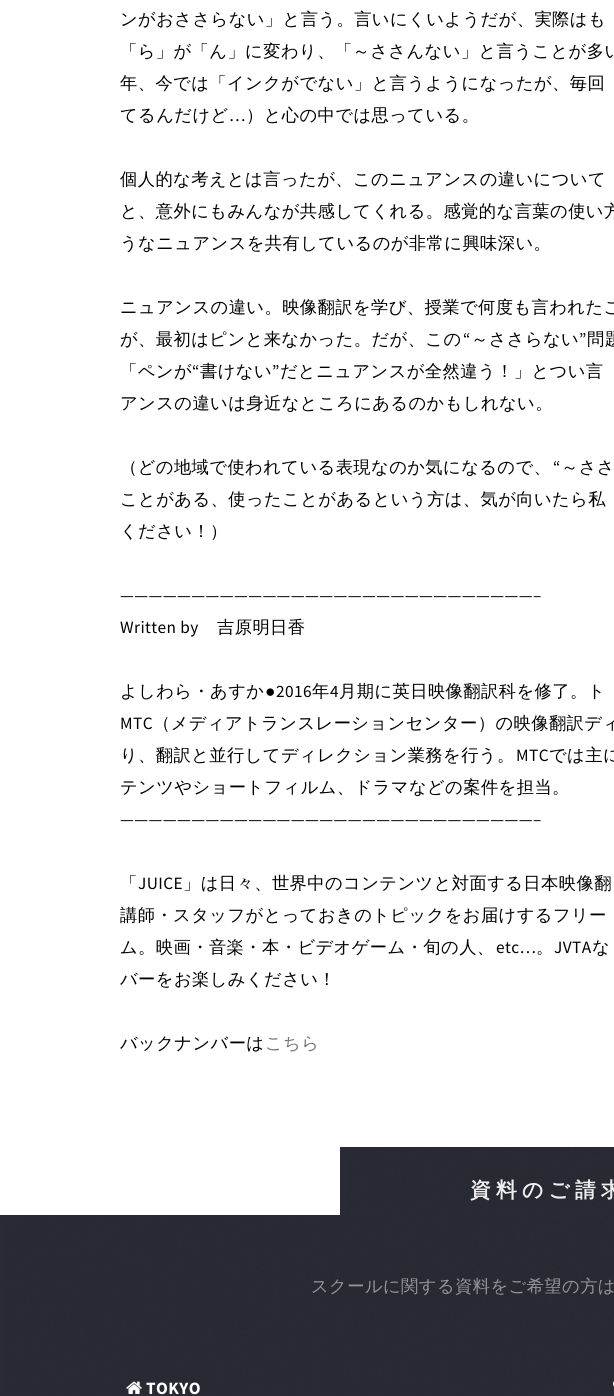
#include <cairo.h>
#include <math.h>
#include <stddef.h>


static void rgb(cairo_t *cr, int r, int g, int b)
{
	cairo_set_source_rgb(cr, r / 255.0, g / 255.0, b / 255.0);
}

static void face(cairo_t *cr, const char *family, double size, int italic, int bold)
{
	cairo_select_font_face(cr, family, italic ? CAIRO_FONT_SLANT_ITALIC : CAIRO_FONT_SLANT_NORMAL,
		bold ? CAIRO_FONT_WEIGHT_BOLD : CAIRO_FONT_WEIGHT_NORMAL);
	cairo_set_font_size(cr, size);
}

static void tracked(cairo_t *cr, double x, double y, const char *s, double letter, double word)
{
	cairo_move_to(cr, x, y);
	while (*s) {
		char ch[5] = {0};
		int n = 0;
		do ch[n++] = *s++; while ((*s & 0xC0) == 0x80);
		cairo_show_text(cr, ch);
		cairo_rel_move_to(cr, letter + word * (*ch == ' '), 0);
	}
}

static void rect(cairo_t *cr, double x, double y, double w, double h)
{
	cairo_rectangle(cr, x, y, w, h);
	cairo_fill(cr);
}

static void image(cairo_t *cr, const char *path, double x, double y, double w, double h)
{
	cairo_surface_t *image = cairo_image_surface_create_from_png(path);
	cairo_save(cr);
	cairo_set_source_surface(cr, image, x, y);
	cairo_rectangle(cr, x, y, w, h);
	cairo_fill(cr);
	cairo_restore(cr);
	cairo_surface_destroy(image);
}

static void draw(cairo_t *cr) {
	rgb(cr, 255, 255, 255);
	cairo_paint(cr);
	face(cr, "WenQuanYi Zen Hei Medium", 17.3, 0, 0);
	rgb(cr, 0, 0, 0);
	tracked(cr, 120, 25, "ンがおささらない」と言う。言いにくいようだが、実際はも", 0.4, 0);
	tracked(cr, 120, 57, "「ら」が「ん」に変わり、「～ささんない」と言うことが多い", 0.4, 0);
	tracked(cr, 120, 89, "年、今では「インクがでない」と言うようになったが、毎回", 0.4, 0);
	tracked(cr, 120, 121, "てるんだけど", 0.4, 0);
	face(cr, "Source Sans Pro", 17.3, 0, 0);
	tracked(cr, 229, 121, "…", 0.4, 0);
	face(cr, "WenQuanYi Zen Hei Medium", 17.3, 0, 0);
	tracked(cr, 246, 121, "）と心の中では思っている。", 0.4, 0);
	tracked(cr, 120, 185, "個人的な考えとは言ったが、このニュアンスの違いについて", 0.4, 0);
	tracked(cr, 120, 217, "と、意外にもみんなが共感してくれる。感覚的な言葉の使い方", 0.4, 0);
	tracked(cr, 120, 249, "うなニュアンスを共有しているのが非常に興味深い。", 0.4, 0);
	tracked(cr, 120, 313, "ニュアンスの違い。映像翻訳を学び、授業で何度も言われたこ", 0.4, 0);
	tracked(cr, 120, 345, "が、最初はピンと来なかった。だが、この", 0.4, 0);
	face(cr, "Source Sans Pro", 17.3, 0, 0);
	tracked(cr, 463, 345, "“", 0.4, 0);
	face(cr, "WenQuanYi Zen Hei Medium", 17.3, 0, 0);
	tracked(cr, 471, 345, "～ささらない", 0.4, 0);
	face(cr, "Source Sans Pro", 17.3, 0, 0);
	tracked(cr, 579, 345, "”", 0.4, 0);
	face(cr, "WenQuanYi Zen Hei Medium", 17.3, 0, 0);
	tracked(cr, 587, 345, "問題", 0.4, 0);
	tracked(cr, 120, 377, "「ペンが", 0.4, 0);
	face(cr, "Source Sans Pro", 17.3, 0, 0);
	tracked(cr, 192, 377, "“", 0.4, 0);
	face(cr, "WenQuanYi Zen Hei Medium", 17.3, 0, 0);
	tracked(cr, 200, 377, "書けない", 0.4, 0);
	face(cr, "Source Sans Pro", 17.3, 0, 0);
	tracked(cr, 272, 377, "”", 0.4, 0);
	face(cr, "WenQuanYi Zen Hei Medium", 17.3, 0, 0);
	tracked(cr, 280, 377, "だとニュアンスが全然違う！」とつい言", 0.4, 0);
	tracked(cr, 120, 409, "アンスの違いは身近なところにあるのかもしれない。", 0.4, 0);
	tracked(cr, 120, 473, "（どの地域で使われている表現なのか気になるので、", 0.4, 0);
	face(cr, "Source Sans Pro", 17.3, 0, 0);
	tracked(cr, 553, 473, "“", 0.4, 0);
	face(cr, "WenQuanYi Zen Hei Medium", 17.3, 0, 0);
	tracked(cr, 561, 473, "～ささ", 0.4, 0);
	tracked(cr, 120, 505, "ことがある、使ったことがあるという方は、気が向いたら私", 0.4, 0);
	tracked(cr, 120, 537, "ください！）", 0.4, 0);
	face(cr, "Source Sans Pro", 17.3, 0, 0);
	tracked(cr, 120, 601, "—————————————————————————————–", 0.4, 0);
	tracked(cr, 120, 633, "Written by", 0.4, 0);
	face(cr, "WenQuanYi Zen Hei Medium", 17.3, 0, 0);
	tracked(cr, 217, 633, "吉原明日香", 0.4, 0);
	tracked(cr, 120, 697, "よしわら・あすか", 0.4, 0);
	face(cr, "Liberation Sans", 17.3, 0, 0);
	tracked(cr, 265, 697, "●", 0.4, 0);
	face(cr, "Source Sans Pro", 17.3, 0, 0);
	tracked(cr, 276, 697, "2016", 0.4, 0);
	face(cr, "WenQuanYi Zen Hei Medium", 17.3, 0, 0);
	tracked(cr, 312, 697, "年", 0.4, 0);
	face(cr, "Source Sans Pro", 17.3, 0, 0);
	tracked(cr, 330, 697, "4", 0.4, 0);
	face(cr, "WenQuanYi Zen Hei Medium", 17.3, 0, 0);
	tracked(cr, 339, 697, "月期に英日映像翻訳科を修了。ト", 0.4, 0);
	face(cr, "Source Sans Pro", 17.3, 0, 0);
	tracked(cr, 120, 729, "MTC", 0.4, 0);
	face(cr, "WenQuanYi Zen Hei Medium", 17.3, 0, 0);
	tracked(cr, 153, 729, "（メディアトランスレーションセンター）の映像翻訳ディ", 0.4, 0);
	tracked(cr, 120, 761, "り、翻訳と並行してディレクション業務を行う。", 0.4, 0);
	face(cr, "Source Sans Pro", 17.3, 0, 0);
	tracked(cr, 516, 761, "MTC", 0.4, 0);
	face(cr, "WenQuanYi Zen Hei Medium", 17.3, 0, 0);
	tracked(cr, 549, 761, "では主に", 0.4, 0);
	tracked(cr, 120, 793, "テンツやショートフィルム、ドラマなどの案件を担当。", 0.4, 0);
	face(cr, "Source Sans Pro", 17.3, 0, 0);
	tracked(cr, 120, 825, "—————————————————————————————–", 0.4, 0);
	face(cr, "WenQuanYi Zen Hei Medium", 17.3, 0, 0);
	tracked(cr, 120, 889, "「", 0.4, 0);
	face(cr, "Source Sans Pro", 17.3, 0, 0);
	tracked(cr, 138, 889, "JUICE", 0.4, 0);
	face(cr, "WenQuanYi Zen Hei Medium", 17.3, 0, 0);
	tracked(cr, 183, 889, "」は日々、世界中のコンテンツと対面する日本映像翻", 0.4, 0);
	tracked(cr, 120, 921, "講師・スタッフがとっておきのトピックをお届けするフリー", 0.4, 0);
	tracked(cr, 120, 953, "ム。映画・音楽・本・ビデオゲーム・旬の人、", 0.4, 0);
	face(cr, "Source Sans Pro", 17.3, 0, 0);
	tracked(cr, 496, 953, "etc…", 0.4, 0);
	face(cr, "WenQuanYi Zen Hei Medium", 17.3, 0, 0);
	tracked(cr, 536, 953, "。", 0.4, 0);
	face(cr, "Source Sans Pro", 17.3, 0, 0);
	tracked(cr, 554, 953, "JVTA", 0.4, 0);
	face(cr, "WenQuanYi Zen Hei Medium", 17.3, 0, 0);
	tracked(cr, 592, 953, "な", 0.4, 0);
	tracked(cr, 120, 985, "バーをお楽しみください！", 0.4, 0);
	tracked(cr, 120, 1049, "バックナンバーは", 0.4, 0);
	rgb(cr, 113, 116, 121);
	tracked(cr, 265, 1049, "こちら", 0.4, 0);
	rgb(cr, 40, 43, 52);
	rect(cr, 0, 1215, 614, 181);
	image(cr, "image0.png", 6, 1215, 608, 179);
	rect(cr, 340, 1147, 274, 68);
	image(cr, "image1.png", 346, 1147, 268, 67);
	face(cr, "WenQuanYi Zen Hei", 20.75, 0, 1);
	rgb(cr, 238, 238, 238);
	tracked(cr, 470, 1197, "資料のご請求", 5.25, 0);
	face(cr, "WenQuanYi Zen Hei Medium", 17.3, 0, 0);
	rgb(cr, 147, 149, 153);
	tracked(cr, 311, 1292, "スクールに関する資料をご希望の方は", 0.4, 0);
	image(cr, "image2.png", 126, 1381, 16, 13);
	face(cr, "Source Sans Pro", 17.3, 0, 1);
	rgb(cr, 255, 255, 255);
	tracked(cr, 146, 1394, "TOKYO", 0.4, 0);
	image(cr, "image3.png", 613, 1381, 1, 6);
}

int main(void) {
	cairo_surface_t *surface = cairo_image_surface_create(CAIRO_FORMAT_RGB24, 614, 1396);
	cairo_t *cr = cairo_create(surface);
	cairo_font_options_t *options = cairo_font_options_create();
	cairo_font_options_set_hint_metrics(options, CAIRO_HINT_METRICS_OFF);
	cairo_font_options_set_hint_style(options, CAIRO_HINT_STYLE_NONE);
	cairo_set_font_options(cr, options);
	cairo_set_miter_limit(cr, 4);
	draw(cr);
	cairo_surface_write_to_png(surface, "render.png");
	cairo_font_options_destroy(options);
	cairo_destroy(cr);
	cairo_surface_destroy(surface);
	return 0;
}
